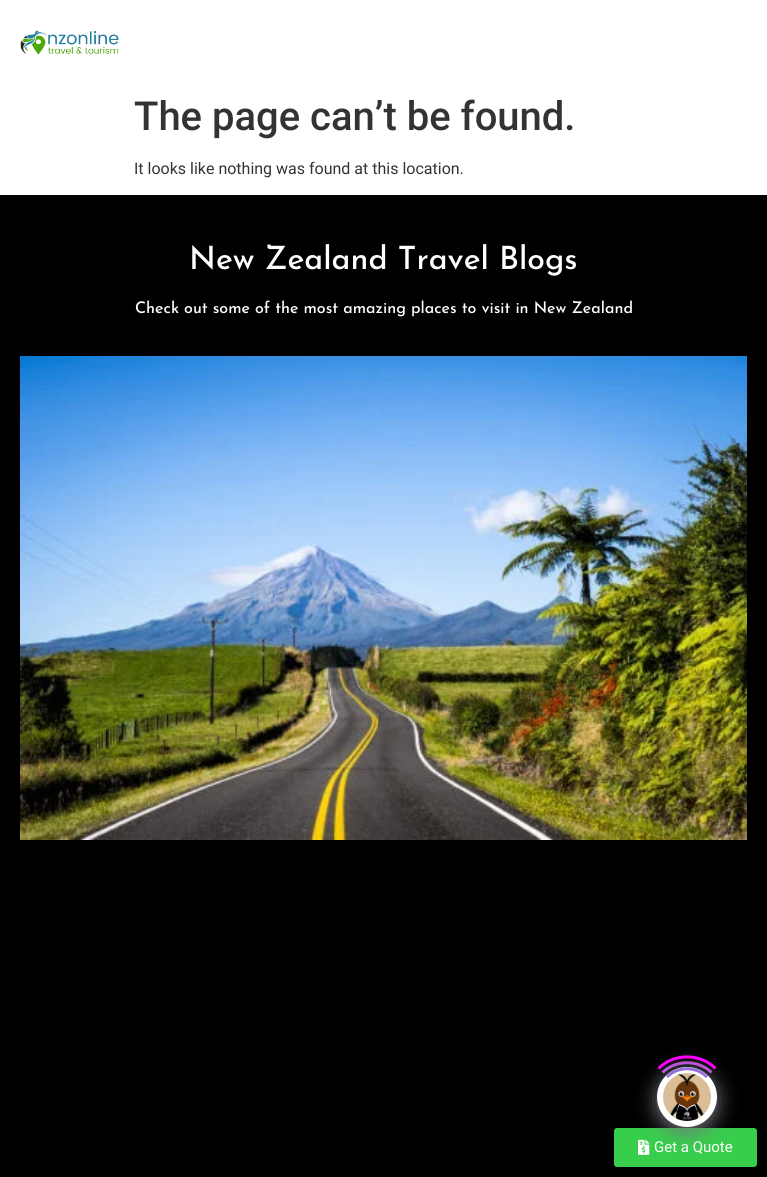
#include <cairo.h>
#include <math.h>
#include <stddef.h>


static void rgb(cairo_t *cr, int r, int g, int b)
{
	cairo_set_source_rgb(cr, r / 255.0, g / 255.0, b / 255.0);
}

static void face(cairo_t *cr, const char *family, double size, int italic, int bold)
{
	cairo_select_font_face(cr, family, italic ? CAIRO_FONT_SLANT_ITALIC : CAIRO_FONT_SLANT_NORMAL,
		bold ? CAIRO_FONT_WEIGHT_BOLD : CAIRO_FONT_WEIGHT_NORMAL);
	cairo_set_font_size(cr, size);
}

static void label(cairo_t *cr, double x, double y, const char *s)
{
	cairo_move_to(cr, x, y);
	cairo_show_text(cr, s);
}

static void rect(cairo_t *cr, double x, double y, double w, double h)
{
	cairo_rectangle(cr, x, y, w, h);
	cairo_fill(cr);
}

static void rrect(cairo_t *cr, double x, double y, double w, double h, double r)
{
	cairo_new_sub_path(cr);
	cairo_arc(cr, x + w - r, y + h - r, r, 0, M_PI / 2);
	cairo_arc(cr, x + r, y + h - r, r, M_PI / 2, M_PI);
	cairo_arc(cr, x + r, y + r, r, M_PI, 1.5 * M_PI);
	cairo_arc(cr, x + w - r, y + r, r, 1.5 * M_PI, 2 * M_PI);
	cairo_close_path(cr);
}

static void soft_shadow(cairo_t *cr, double x, double y, double w, double h, double r, double blur, double alpha)
{
	cairo_push_group_with_content(cr, CAIRO_CONTENT_ALPHA);
	cairo_set_operator(cr, CAIRO_OPERATOR_SOURCE);
	for (int i = 15; i >= -15 && fmin(w, h) + blur * i / 3 > 0; i -= 2) {
		double e = blur * i / 6;
		cairo_set_source_rgba(cr, 0, 0, 0, alpha * erfc((i - 1) / 8.5) / 2);
		rrect(cr, x - e, y - e, w + 2 * e, h + 2 * e, fmax(0, fmin(r + e + blur * .6, fmin(w, h) / 2 + e)));
		cairo_fill(cr);
	}
	cairo_pattern_t *soft = cairo_pop_group(cr);
	cairo_mask(cr, soft);
	cairo_pattern_destroy(soft);
}

static void image(cairo_t *cr, const char *path, double x, double y, double w, double h)
{
	cairo_surface_t *image = cairo_image_surface_create_from_png(path);
	cairo_save(cr);
	cairo_set_source_surface(cr, image, x, y);
	cairo_rectangle(cr, x, y, w, h);
	cairo_fill(cr);
	cairo_restore(cr);
	cairo_surface_destroy(image);
}

static void draw(cairo_t *cr) {
	rgb(cr, 255, 255, 255);
	cairo_paint(cr);
	image(cr, "image0.png", 20, 30, 99, 25);
	face(cr, "Roboto Medium", 40, 0, 0);
	rgb(cr, 51, 51, 51);
	label(cr, 134, 130, "The page can’t be found.");
	face(cr, "Roboto", 16, 0, 0);
	label(cr, 134, 174, "It looks like nothing was found at this location.");
	rgb(cr, 0, 0, 0);
	rect(cr, 0, 195, 767, 982);
	face(cr, "Josefin Sans Medium", 32, 0, 0);
	rgb(cr, 255, 255, 255);
	label(cr, 189, 269, "New Zealand Travel Blogs");
	face(cr, "Josefin Sans Medium", 16, 0, 0);
	label(cr, 135, 313, "Check out some of the most amazing places to visit in New Zealand");
	image(cr, "image1.png", 20, 356, 727, 484);
	rgb(cr, 54, 206, 75);
	rrect(cr, 614, 1128, 143, 39, 3);
	cairo_fill(cr);
	image(cr, "image2.png", 638, 1139, 12, 16);
	face(cr, "Roboto", 15, 0, 0);
	rgb(cr, 255, 255, 255);
	label(cr, 654, 1152, "Get a Quote");
	rgb(cr, 118, 117, 128);
	soft_shadow(cr, 657, 1071, 60, 60, 30, 10, 1);
	rgb(cr, 255, 255, 255);
	cairo_arc(cr, 687, 1097, 30, 0, 2 * M_PI);
	cairo_fill(cr);
	image(cr, "image3.png", 663, 1073, 48, 48);
	cairo_new_path(cr);
	cairo_move_to(cr, 667, 1077);
	cairo_curve_to(cr, 678, 1066, 696, 1066, 707, 1077);
	rgb(cr, 147, 112, 219);
	cairo_set_line_width(cr, 3);
	cairo_stroke(cr);
	cairo_new_path(cr);
	cairo_move_to(cr, 662.5, 1072.5);
	cairo_curve_to(cr, 676, 1059.5, 698, 1059.5, 711.5, 1072.5);
	rgb(cr, 186, 85, 211);
	cairo_stroke(cr);
	cairo_new_path(cr);
	cairo_move_to(cr, 658.5, 1068.5);
	cairo_curve_to(cr, 674, 1053, 700, 1053, 715.5, 1068.5);
	rgb(cr, 255, 0, 255);
	cairo_stroke(cr);
}

int main(void) {
	cairo_surface_t *surface = cairo_image_surface_create(CAIRO_FORMAT_RGB24, 767, 1177);
	cairo_t *cr = cairo_create(surface);
	cairo_font_options_t *options = cairo_font_options_create();
	cairo_font_options_set_hint_metrics(options, CAIRO_HINT_METRICS_OFF);
	cairo_font_options_set_hint_style(options, CAIRO_HINT_STYLE_NONE);
	cairo_set_font_options(cr, options);
	cairo_set_miter_limit(cr, 4);
	draw(cr);
	cairo_surface_write_to_png(surface, "render.png");
	cairo_font_options_destroy(options);
	cairo_destroy(cr);
	cairo_surface_destroy(surface);
	return 0;
}
